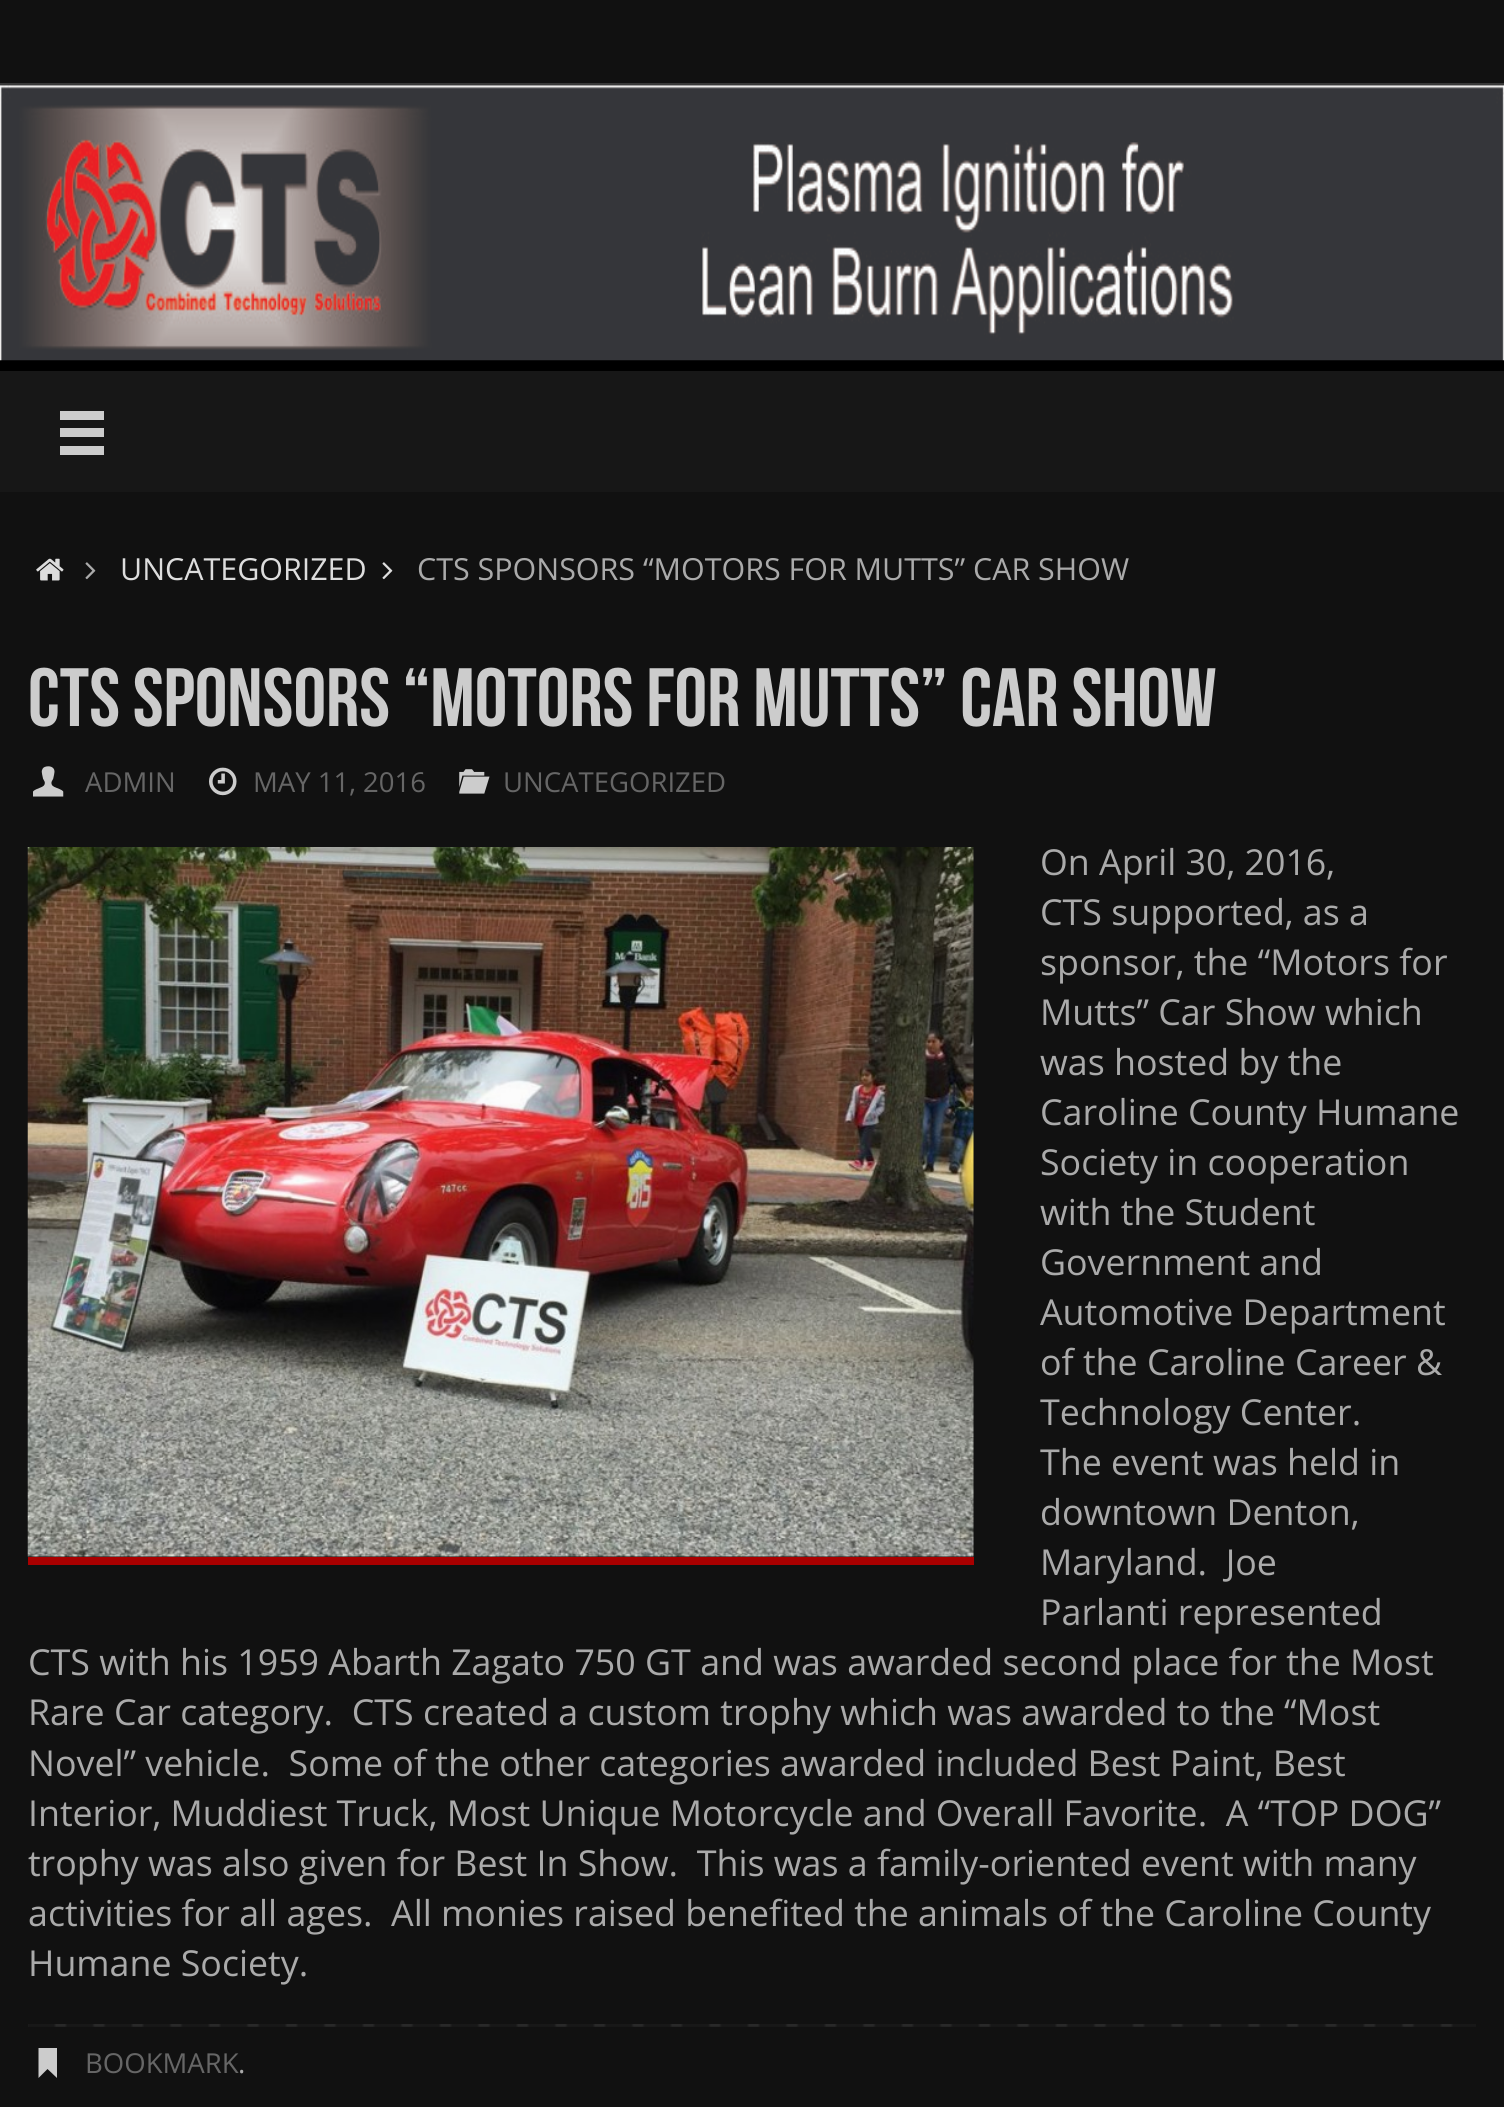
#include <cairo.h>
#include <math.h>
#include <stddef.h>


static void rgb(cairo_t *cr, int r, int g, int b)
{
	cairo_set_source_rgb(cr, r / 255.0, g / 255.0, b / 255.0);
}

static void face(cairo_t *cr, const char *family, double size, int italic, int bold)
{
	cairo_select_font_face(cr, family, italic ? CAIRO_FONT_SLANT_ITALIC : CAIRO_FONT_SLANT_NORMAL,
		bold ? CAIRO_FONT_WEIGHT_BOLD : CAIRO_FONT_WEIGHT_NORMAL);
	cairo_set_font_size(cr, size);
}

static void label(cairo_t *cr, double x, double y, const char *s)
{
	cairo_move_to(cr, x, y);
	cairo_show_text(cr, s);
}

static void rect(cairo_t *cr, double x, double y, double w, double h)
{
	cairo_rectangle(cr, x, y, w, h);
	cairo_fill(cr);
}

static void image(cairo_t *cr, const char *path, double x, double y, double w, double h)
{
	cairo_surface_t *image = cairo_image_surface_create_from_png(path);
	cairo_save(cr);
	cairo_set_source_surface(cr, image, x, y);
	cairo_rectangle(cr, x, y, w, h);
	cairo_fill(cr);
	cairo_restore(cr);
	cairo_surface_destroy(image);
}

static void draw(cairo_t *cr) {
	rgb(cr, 0, 0, 0);
	cairo_paint(cr);
	rgb(cr, 17, 17, 17);
	rect(cr, 0, 0, 1504, 83);
	rgb(cr, 57, 57, 57);
	rect(cr, 0, 83, 1504, 3);
	image(cr, "image0.png", 0, 85, 1504, 276);
	rgb(cr, 23, 23, 23);
	rect(cr, 0, 371, 1504, 121);
	rgb(cr, 204, 204, 204);
	cairo_new_path(cr);
	cairo_move_to(cr, 60, 411);
	cairo_line_to(cr, 60, 420);
	cairo_line_to(cr, 104, 420);
	cairo_line_to(cr, 104, 411);
	cairo_close_path(cr);
	cairo_move_to(cr, 60, 428);
	cairo_line_to(cr, 60, 437);
	cairo_line_to(cr, 104, 437);
	cairo_line_to(cr, 104, 428);
	cairo_close_path(cr);
	cairo_move_to(cr, 60, 446);
	cairo_line_to(cr, 60, 455);
	cairo_line_to(cr, 104, 455);
	cairo_line_to(cr, 104, 446);
	cairo_close_path(cr);
	cairo_fill(cr);
	rgb(cr, 17, 17, 17);
	rect(cr, 0, 492, 1504, 1615);
	image(cr, "image1.png", 36, 558, 28, 23);
	image(cr, "image2.png", 85, 562, 11, 18);
	face(cr, "Open Sans", 30.4, 0, 0);
	rgb(cr, 221, 221, 221);
	label(cr, 120, 580, "UNCATEGORIZED");
	image(cr, "image3.png", 382, 562, 11, 18);
	rgb(cr, 170, 170, 170);
	label(cr, 417, 580, "CTS SPONSORS “MOTORS FOR MUTTS” CAR SHOW");
	face(cr, "Bebas Neue", 82.5, 0, 0);
	rgb(cr, 204, 204, 204);
	label(cr, 28, 726, "CTS SPONSORS “MOTORS FOR MUTTS” CAR SHOW");
	image(cr, "image4.png", 33, 766, 31, 31);
	face(cr, "Open Sans", 27.5, 0, 0);
	rgb(cr, 102, 102, 102);
	label(cr, 85, 792, "ADMIN");
	image(cr, "image5.png", 209, 767, 28, 29);
	label(cr, 253, 792, "MAY 11, 2016");
	image(cr, "image6.png", 459, 769, 31, 25);
	label(cr, 503, 792, "UNCATEGORIZED");
	rgb(cr, 168, 0, 0);
	rect(cr, 28, 1557, 946, 8);
	image(cr, "image7.png", 27, 847, 947, 710);
	face(cr, "Open Sans", 35.75, 0, 0);
	rgb(cr, 170, 170, 170);
	label(cr, 1040, 875, "On April 30, 2016,");
	label(cr, 1040, 925, "CTS supported, as a");
	label(cr, 1040, 975, "sponsor, the “Motors for");
	label(cr, 1040, 1025, "Mutts” Car Show which");
	label(cr, 1040, 1075, "was hosted by the");
	label(cr, 1040, 1125, "Caroline County Humane");
	label(cr, 1040, 1175, "Society in cooperation");
	label(cr, 1040, 1225, "with the Student");
	label(cr, 1040, 1275, "Government and");
	label(cr, 1040, 1325, "Automotive Department");
	label(cr, 1040, 1375, "of the Caroline Career &");
	label(cr, 1040, 1425, "Technology Center.");
	label(cr, 1040, 1475, "The event was held in");
	label(cr, 1040, 1525, "downtown Denton,");
	label(cr, 1040, 1575, "Maryland.  Joe");
	label(cr, 1040, 1625, "Parlanti represented");
	label(cr, 28, 1675, "CTS with his 1959 Abarth Zagato 750 GT and was awarded second place for the Most");
	label(cr, 28, 1725, "Rare Car category.  CTS created a custom trophy which was awarded to the “Most");
	label(cr, 28, 1776, "Novel” vehicle.  Some of the other categories awarded included Best Paint, Best");
	label(cr, 28, 1826, "Interior, Muddiest Truck, Most Unique Motorcycle and Overall Favorite.  A “TOP DOG”");
	label(cr, 28, 1876, "trophy was also given for Best In Show.  This was a family-oriented event with many");
	label(cr, 28, 1926, "activities for all ages.  All monies raised benefited the animals of the Caroline County");
	label(cr, 28, 1976, "Humane Society.");
	image(cr, "image8.png", 28, 2024, 1448, 3);
	rgb(cr, 204, 204, 204);
	cairo_new_path(cr);
	cairo_move_to(cr, 38.5, 2075);
	cairo_line_to(cr, 38.5, 2048);
	cairo_line_to(cr, 57, 2048);
	cairo_line_to(cr, 57, 2078);
	cairo_line_to(cr, 47.5, 2069);
	cairo_line_to(cr, 38.5, 2078);
	cairo_close_path(cr);
	cairo_fill(cr);
	face(cr, "Open Sans", 27.5, 0, 0);
	rgb(cr, 102, 102, 102);
	label(cr, 85, 2073, "BOOKMARK");
	rgb(cr, 170, 170, 170);
	label(cr, 238, 2073, ".");
}

int main(void) {
	cairo_surface_t *surface = cairo_image_surface_create(CAIRO_FORMAT_RGB24, 1504, 2107);
	cairo_t *cr = cairo_create(surface);
	cairo_font_options_t *options = cairo_font_options_create();
	cairo_font_options_set_hint_metrics(options, CAIRO_HINT_METRICS_OFF);
	cairo_font_options_set_hint_style(options, CAIRO_HINT_STYLE_NONE);
	cairo_set_font_options(cr, options);
	cairo_set_miter_limit(cr, 4);
	draw(cr);
	cairo_surface_write_to_png(surface, "render.png");
	cairo_font_options_destroy(options);
	cairo_destroy(cr);
	cairo_surface_destroy(surface);
	return 0;
}
